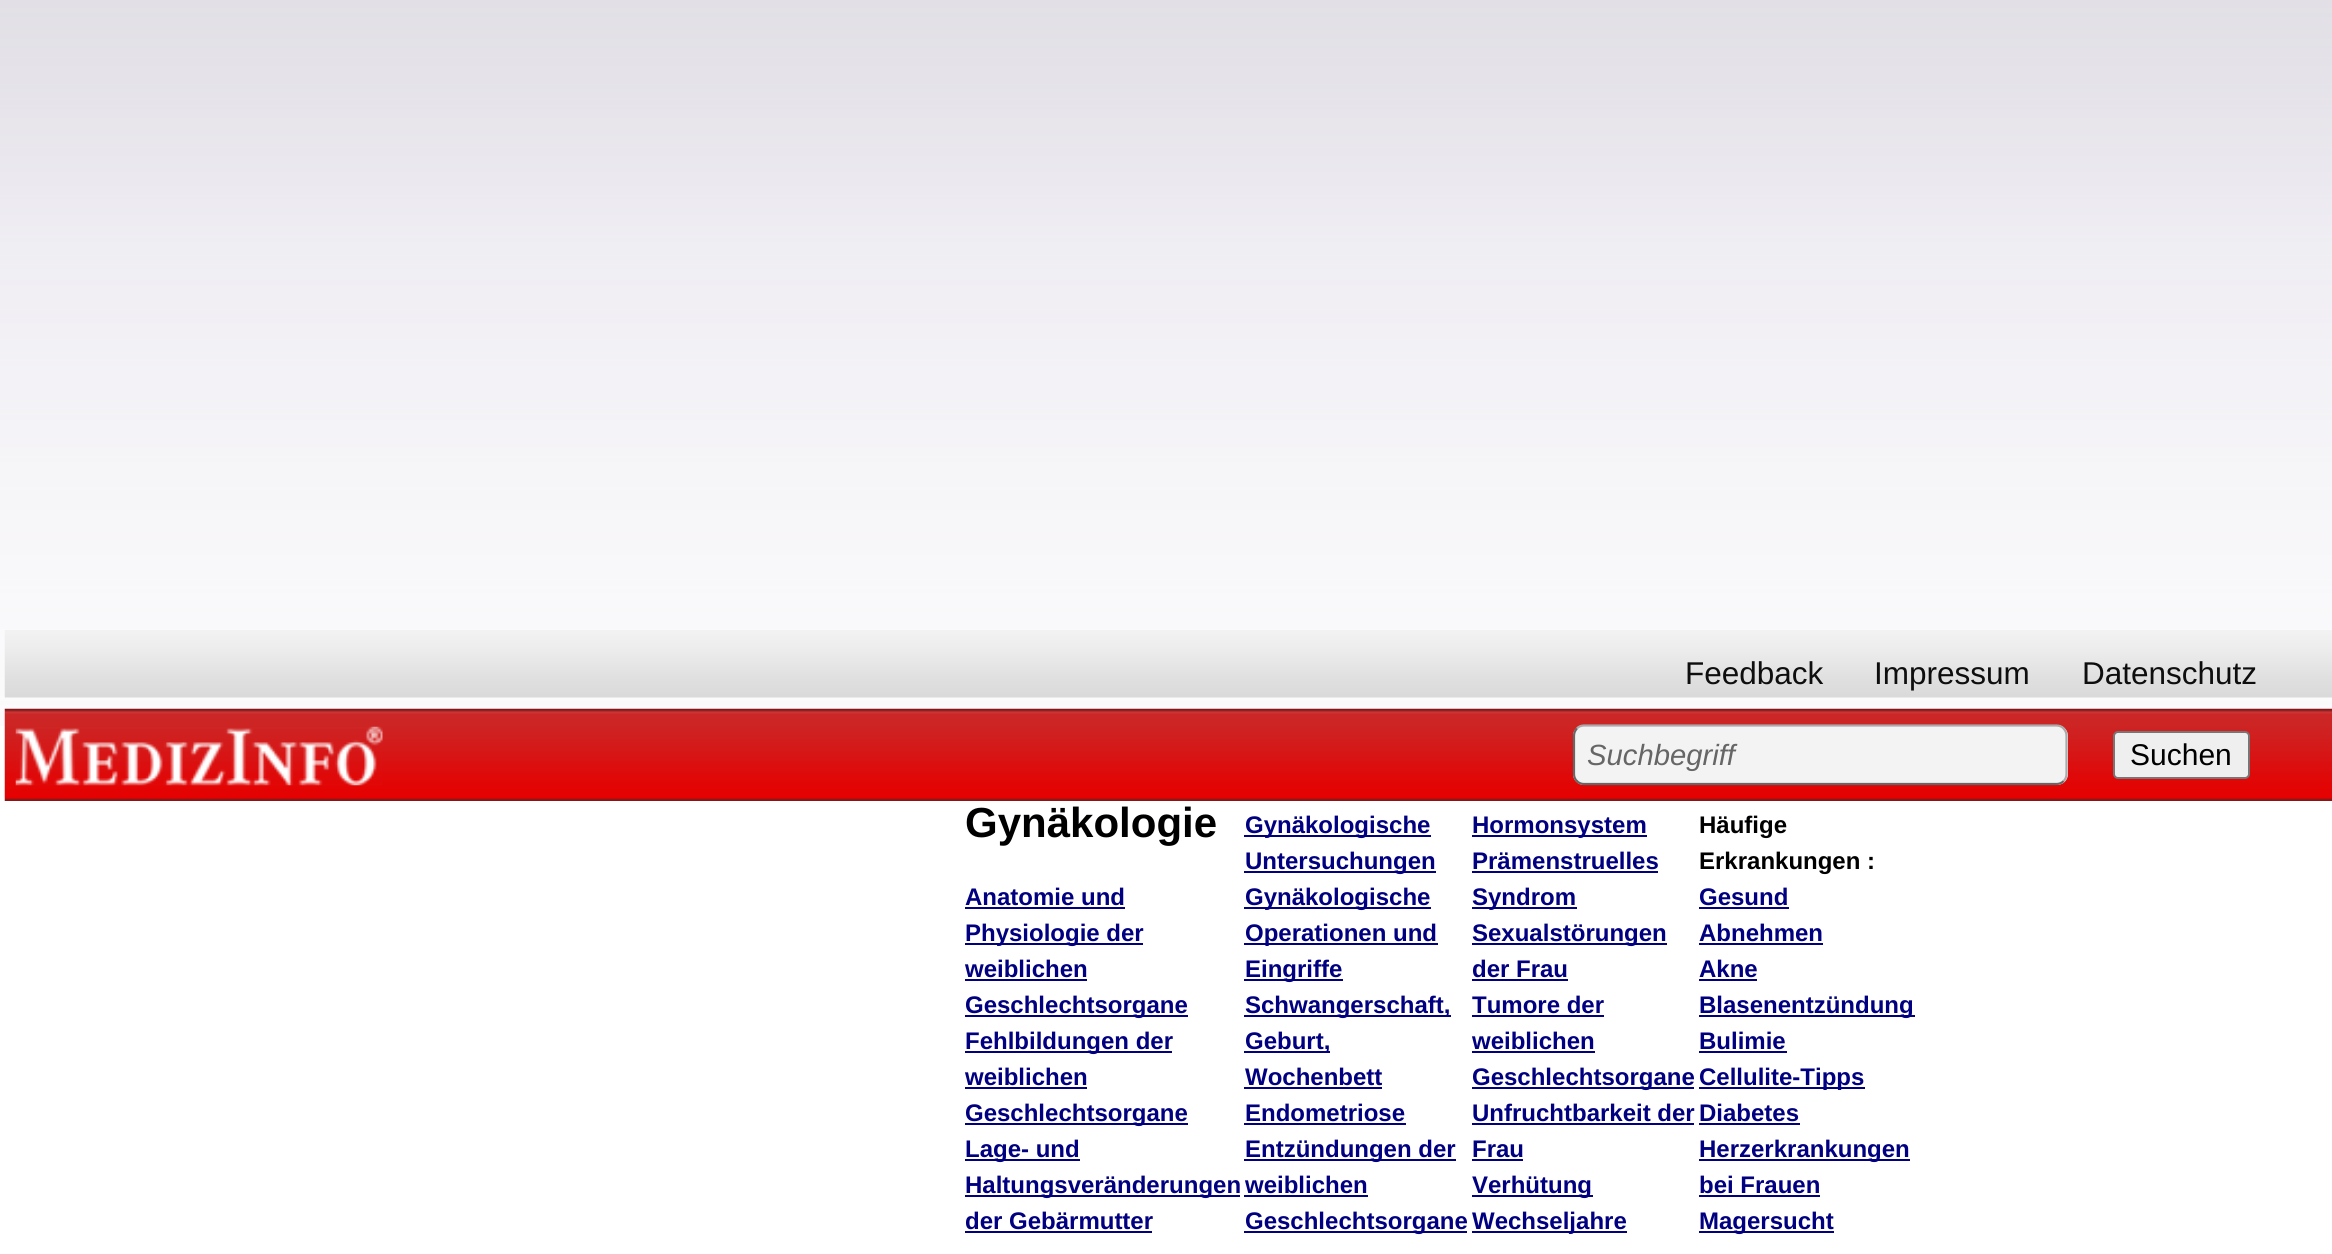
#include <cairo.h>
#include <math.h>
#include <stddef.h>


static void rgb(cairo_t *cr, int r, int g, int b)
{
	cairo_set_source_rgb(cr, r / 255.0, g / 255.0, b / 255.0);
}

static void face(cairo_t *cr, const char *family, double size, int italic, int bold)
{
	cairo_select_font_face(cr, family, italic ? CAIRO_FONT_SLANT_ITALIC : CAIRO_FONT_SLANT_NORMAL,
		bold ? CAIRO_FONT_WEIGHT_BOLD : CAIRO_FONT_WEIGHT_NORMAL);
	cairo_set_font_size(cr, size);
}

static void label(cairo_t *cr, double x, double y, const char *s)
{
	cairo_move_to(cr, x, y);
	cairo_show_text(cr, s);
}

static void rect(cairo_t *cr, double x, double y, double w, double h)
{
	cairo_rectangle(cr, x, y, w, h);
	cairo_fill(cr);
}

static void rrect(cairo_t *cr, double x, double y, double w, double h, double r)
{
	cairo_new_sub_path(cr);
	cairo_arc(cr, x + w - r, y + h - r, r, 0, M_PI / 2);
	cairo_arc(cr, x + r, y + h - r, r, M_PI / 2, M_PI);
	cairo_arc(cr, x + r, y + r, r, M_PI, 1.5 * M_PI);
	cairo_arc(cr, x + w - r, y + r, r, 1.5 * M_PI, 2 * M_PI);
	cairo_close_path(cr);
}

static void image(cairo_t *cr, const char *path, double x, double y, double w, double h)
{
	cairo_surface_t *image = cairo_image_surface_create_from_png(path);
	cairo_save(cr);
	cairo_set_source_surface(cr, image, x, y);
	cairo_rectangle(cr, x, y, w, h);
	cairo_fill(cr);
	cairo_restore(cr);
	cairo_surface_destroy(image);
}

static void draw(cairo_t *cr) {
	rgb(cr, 255, 255, 255);
	cairo_paint(cr);
	image(cr, "image0.png", 0, 0, 2332, 726);
	image(cr, "image1.png", 4, 630, 2328, 68);
	face(cr, "Liberation Sans", 31.5, 0, 0);
	rgb(cr, 14, 14, 14);
	label(cr, 1685, 684, "Feedback");
	label(cr, 1874, 684, "Impressum");
	label(cr, 2082, 684, "Datenschutz");
	image(cr, "image2.png", 4, 708, 2328, 93);
	image(cr, "image3.png", 15, 726, 368, 60);
	rgb(cr, 243, 243, 243);
	rrect(cr, 1573, 725, 495, 60, 11);
	cairo_fill(cr);
	cairo_new_path(cr);
	cairo_move_to(cr, 1577, 728.5);
	cairo_curve_to(cr, 1578.5, 726.5, 1581.5, 725.5, 1584, 725.5);
	cairo_line_to(cr, 2056.5, 725.5);
	cairo_curve_to(cr, 2059, 725.5, 2062, 726.5, 2063.5, 728.5);
	cairo_curve_to(cr, 2065.5, 730.5, 2066.5, 733, 2066.5, 736);
	cairo_line_to(cr, 2066.5, 774);
	cairo_curve_to(cr, 2066.5, 776.5, 2065.5, 779.5, 2063.5, 781);
	rgb(cr, 170, 170, 170);
	cairo_set_line_width(cr, 2.2);
	cairo_stroke(cr);
	cairo_new_path(cr);
	cairo_move_to(cr, 2063.5, 781);
	cairo_curve_to(cr, 2062, 783, 2059, 784, 2056.5, 784);
	cairo_line_to(cr, 1584, 784);
	cairo_curve_to(cr, 1581.5, 784, 1578.5, 783, 1577, 781);
	cairo_curve_to(cr, 1575, 779.5, 1574, 776.5, 1574, 774);
	cairo_line_to(cr, 1574, 736);
	cairo_curve_to(cr, 1574, 733, 1575, 730.5, 1577, 728.5);
	rgb(cr, 102, 102, 102);
	cairo_stroke(cr);
	face(cr, "Liberation Sans", 29.25, 1, 0);
	label(cr, 1587, 765, "Suchbegriff");
	rgb(cr, 239, 239, 239);
	rrect(cr, 2114, 732, 135, 46, 4);
	cairo_fill_preserve(cr);
	rgb(cr, 118, 118, 118);
	cairo_set_line_width(cr, 2);
	cairo_stroke(cr);
	face(cr, "Liberation Sans", 30, 0, 0);
	rgb(cr, 0, 0, 0);
	label(cr, 2130, 765, "Suchen");
	face(cr, "Liberation Sans", 42, 0, 1);
	label(cr, 965, 837, "Gynäkologie");
	face(cr, "Liberation Sans", 24, 0, 1);
	rgb(cr, 0, 0, 128);
	label(cr, 965, 905, "Anatomie und");
	rect(cr, 965, 907, 160, 2);
	rect(cr, 965, 943, 178, 2);
	label(cr, 965, 941, "Physiologie der");
	label(cr, 965, 977, "weiblichen");
	rect(cr, 965, 979, 122, 2);
	rect(cr, 965, 1015, 223, 2);
	label(cr, 965, 1013, "Geschlechtsorgane");
	rect(cr, 965, 1051, 207, 2);
	label(cr, 965, 1049, "Fehlbildungen der");
	label(cr, 965, 1085, "weiblichen");
	rect(cr, 965, 1087, 122, 2);
	rect(cr, 965, 1123, 223, 2);
	label(cr, 965, 1121, "Geschlechtsorgane");
	rect(cr, 965, 1159, 115, 2);
	label(cr, 965, 1157, "Lage- und");
	rect(cr, 965, 1195, 275, 2);
	label(cr, 965, 1193, "Haltungsveränderungen");
	label(cr, 965, 1229, "der Gebärmutter");
	rect(cr, 965, 1231, 187, 2);
	rect(cr, 1244, 835, 187, 2);
	label(cr, 1245, 833, "Gynäkologische");
	rect(cr, 1244, 871, 192, 2);
	label(cr, 1245, 869, "Untersuchungen");
	rect(cr, 1244, 907, 187, 2);
	label(cr, 1245, 905, "Gynäkologische");
	rect(cr, 1244, 943, 194, 2);
	label(cr, 1245, 941, "Operationen und");
	rect(cr, 1244, 979, 99, 2);
	label(cr, 1245, 977, "Eingriffe");
	rect(cr, 1244, 1015, 207, 2);
	label(cr, 1245, 1013, "Schwangerschaft,");
	rect(cr, 1244, 1051, 86, 2);
	label(cr, 1245, 1049, "Geburt,");
	label(cr, 1245, 1085, "Wochenbett");
	rect(cr, 1244, 1087, 138, 2);
	label(cr, 1245, 1121, "Endometriose");
	rect(cr, 1244, 1123, 162, 2);
	rect(cr, 1244, 1159, 212, 2);
	label(cr, 1245, 1157, "Entzündungen der");
	label(cr, 1245, 1193, "weiblichen");
	rect(cr, 1244, 1195, 124, 2);
	rect(cr, 1244, 1231, 223, 2);
	label(cr, 1245, 1229, "Geschlechtsorgane");
	rect(cr, 1472, 835, 175, 2);
	label(cr, 1472, 833, "Hormonsystem");
	label(cr, 1472, 869, "Prämenstruelles");
	rect(cr, 1472, 871, 186, 2);
	rect(cr, 1472, 907, 105, 2);
	label(cr, 1472, 905, "Syndrom");
	rect(cr, 1472, 943, 195, 2);
	label(cr, 1472, 941, "Sexualstörungen");
	label(cr, 1472, 977, "der Frau");
	rect(cr, 1472, 979, 96, 2);
	label(cr, 1472, 1013, "Tumore der");
	rect(cr, 1472, 1015, 132, 2);
	label(cr, 1472, 1049, "weiblichen");
	rect(cr, 1472, 1051, 123, 2);
	rect(cr, 1472, 1087, 222, 2);
	label(cr, 1472, 1085, "Geschlechtsorgane");
	label(cr, 1472, 1121, "Unfruchtbarkeit der");
	rect(cr, 1472, 1123, 222, 2);
	label(cr, 1472, 1157, "Frau");
	rect(cr, 1472, 1159, 51, 2);
	rect(cr, 1472, 1195, 121, 2);
	label(cr, 1472, 1193, "Verhütung");
	rect(cr, 1472, 1231, 155, 2);
	label(cr, 1472, 1229, "Wechseljahre");
	rgb(cr, 0, 0, 0);
	label(cr, 1699, 833, "Häufige");
	label(cr, 1699, 869, "Erkrankungen :");
	rgb(cr, 0, 0, 128);
	label(cr, 1699, 905, "Gesund");
	rect(cr, 1699, 907, 90, 2);
	label(cr, 1699, 941, "Abnehmen");
	rect(cr, 1699, 943, 124, 2);
	label(cr, 1699, 977, "Akne");
	rect(cr, 1699, 979, 58, 2);
	rect(cr, 1699, 1015, 216, 2);
	label(cr, 1699, 1013, "Blasenentzündung");
	label(cr, 1699, 1049, "Bulimie");
	rect(cr, 1699, 1051, 88, 2);
	rect(cr, 1699, 1087, 166, 2);
	label(cr, 1699, 1085, "Cellulite-Tipps");
	label(cr, 1699, 1121, "Diabetes");
	rect(cr, 1699, 1123, 101, 2);
	rect(cr, 1699, 1159, 211, 2);
	label(cr, 1699, 1157, "Herzerkrankungen");
	label(cr, 1699, 1193, "bei Frauen");
	rect(cr, 1699, 1195, 121, 2);
	rect(cr, 1699, 1231, 135, 2);
	label(cr, 1699, 1229, "Magersucht");
}

int main(void) {
	cairo_surface_t *surface = cairo_image_surface_create(CAIRO_FORMAT_RGB24, 2332, 1254);
	cairo_t *cr = cairo_create(surface);
	cairo_font_options_t *options = cairo_font_options_create();
	cairo_font_options_set_hint_metrics(options, CAIRO_HINT_METRICS_OFF);
	cairo_font_options_set_hint_style(options, CAIRO_HINT_STYLE_NONE);
	cairo_set_font_options(cr, options);
	cairo_set_miter_limit(cr, 4);
	draw(cr);
	cairo_surface_write_to_png(surface, "render.png");
	cairo_font_options_destroy(options);
	cairo_destroy(cr);
	cairo_surface_destroy(surface);
	return 0;
}
